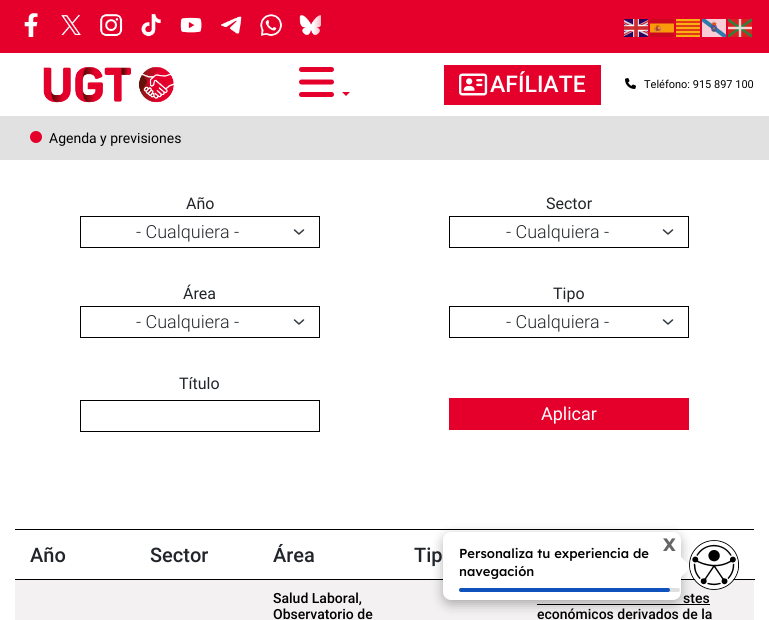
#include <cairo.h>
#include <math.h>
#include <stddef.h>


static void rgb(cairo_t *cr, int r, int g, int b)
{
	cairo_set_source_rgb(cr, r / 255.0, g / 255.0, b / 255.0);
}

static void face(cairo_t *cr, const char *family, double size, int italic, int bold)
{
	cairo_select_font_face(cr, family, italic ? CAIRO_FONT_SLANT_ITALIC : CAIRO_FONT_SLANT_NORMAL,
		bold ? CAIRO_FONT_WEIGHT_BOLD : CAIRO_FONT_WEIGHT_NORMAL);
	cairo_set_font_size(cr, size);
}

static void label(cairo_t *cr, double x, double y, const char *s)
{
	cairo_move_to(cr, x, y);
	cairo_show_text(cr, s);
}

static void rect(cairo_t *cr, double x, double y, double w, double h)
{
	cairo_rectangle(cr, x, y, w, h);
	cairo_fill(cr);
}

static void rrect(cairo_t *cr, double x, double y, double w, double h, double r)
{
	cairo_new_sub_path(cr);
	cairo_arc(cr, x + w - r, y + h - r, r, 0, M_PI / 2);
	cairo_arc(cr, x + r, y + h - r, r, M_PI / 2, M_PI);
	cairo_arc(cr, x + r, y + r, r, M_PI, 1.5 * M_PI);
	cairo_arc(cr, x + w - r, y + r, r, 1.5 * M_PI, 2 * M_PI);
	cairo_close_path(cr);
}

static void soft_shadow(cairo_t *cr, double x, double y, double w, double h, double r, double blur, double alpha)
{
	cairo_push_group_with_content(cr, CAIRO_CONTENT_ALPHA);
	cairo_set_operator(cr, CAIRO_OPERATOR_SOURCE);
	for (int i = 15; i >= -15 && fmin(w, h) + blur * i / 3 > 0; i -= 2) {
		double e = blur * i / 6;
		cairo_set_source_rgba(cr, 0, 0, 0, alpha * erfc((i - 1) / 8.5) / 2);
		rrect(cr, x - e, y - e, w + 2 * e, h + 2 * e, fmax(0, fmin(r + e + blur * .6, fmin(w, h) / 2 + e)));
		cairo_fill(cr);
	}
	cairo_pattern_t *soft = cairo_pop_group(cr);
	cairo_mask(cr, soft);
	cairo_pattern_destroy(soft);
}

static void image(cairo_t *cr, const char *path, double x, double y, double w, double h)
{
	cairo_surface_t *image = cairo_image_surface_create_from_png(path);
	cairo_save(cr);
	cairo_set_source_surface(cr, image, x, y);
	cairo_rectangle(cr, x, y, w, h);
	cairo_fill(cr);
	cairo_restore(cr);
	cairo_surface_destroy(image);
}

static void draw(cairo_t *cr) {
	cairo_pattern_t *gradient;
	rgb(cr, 255, 255, 255);
	cairo_paint(cr);
	rgb(cr, 228, 0, 43);
	rect(cr, 0, 0, 769, 53);
	image(cr, "image0.png", 24, 13, 14, 24);
	image(cr, "image1.png", 61, 15, 20, 20);
	image(cr, "image2.png", 100, 14, 23, 23);
	image(cr, "image3.png", 141, 14, 20, 23);
	image(cr, "image4.png", 260, 14, 22, 22);
	image(cr, "image5.png", 299, 15, 22, 20);
	image(cr, "image6.png", 180, 17, 22, 16);
	image(cr, "image7.png", 221, 16, 21, 18);
	gradient = cairo_pattern_create_linear(313, 27, 343, 27);
	cairo_pattern_add_color_stop_rgba(gradient, 0, 0.894, 0, 0.169, 0);
	cairo_pattern_add_color_stop_rgba(gradient, 1, 0.894, 0, 0.169, 1);
	cairo_set_source(cr, gradient);
	cairo_pattern_destroy(gradient);
	rect(cr, 314, 15, 7, 20);
	image(cr, "image8.png", 624, 19, 24, 18);
	image(cr, "image9.png", 650, 19, 24, 18);
	image(cr, "image10.png", 676, 19, 24, 18);
	image(cr, "image11.png", 702, 19, 24, 18);
	image(cr, "image12.png", 728, 18, 24, 20);
	image(cr, "image13.png", 43, 67, 132, 37);
	image(cr, "image14.png", 299, 67, 35, 30);
	rgb(cr, 228, 0, 43);
	cairo_new_path(cr);
	cairo_move_to(cr, 342, 92);
	cairo_line_to(cr, 350, 92);
	cairo_line_to(cr, 346, 96);
	cairo_close_path(cr);
	cairo_fill(cr);
	rect(cr, 444, 65, 157, 40);
	image(cr, "image15.png", 459, 73, 29, 23);
	face(cr, "Roboto Medium", 23, 0, 0);
	rgb(cr, 255, 255, 255);
	label(cr, 490, 92, "AFÍLIATE");
	image(cr, "image16.png", 625, 78, 11, 11);
	face(cr, "Roboto", 11, 0, 0);
	rgb(cr, 0, 0, 0);
	label(cr, 644, 88, "Teléfono: 915 897 100");
	rgb(cr, 225, 225, 225);
	rect(cr, 0, 116, 769, 44);
	rgb(cr, 228, 0, 43);
	cairo_new_path(cr);
	cairo_arc(cr, 36, 137, 6, 0, 2 * M_PI);
	cairo_fill(cr);
	face(cr, "Roboto", 14, 0, 0);
	rgb(cr, 0, 0, 0);
	label(cr, 49, 143, "Agenda y previsiones");
	face(cr, "Roboto", 16, 0, 0);
	rgb(cr, 33, 37, 41);
	label(cr, 186, 209, "Año");
	cairo_new_path(cr);
	cairo_move_to(cr, 294.5, 230);
	cairo_line_to(cr, 299, 234);
	cairo_line_to(cr, 303.5, 230);
	rgb(cr, 52, 58, 64);
	cairo_set_line_width(cr, 1.5);
	cairo_set_line_cap(cr, CAIRO_LINE_CAP_ROUND);
	cairo_set_line_join(cr, CAIRO_LINE_JOIN_ROUND);
	cairo_stroke(cr);
	cairo_rectangle(cr, 80.5, 216.5, 239, 31);
	rgb(cr, 0, 0, 0);
	cairo_set_line_width(cr, 1);
	cairo_set_line_cap(cr, CAIRO_LINE_CAP_BUTT);
	cairo_set_line_join(cr, CAIRO_LINE_JOIN_MITER);
	cairo_stroke(cr);
	face(cr, "Roboto Light", 18, 0, 0);
	rgb(cr, 33, 37, 41);
	label(cr, 136, 238, "- Cualquiera -");
	face(cr, "Roboto", 16, 0, 0);
	label(cr, 546, 209, "Sector");
	cairo_new_path(cr);
	cairo_move_to(cr, 663.5, 230);
	cairo_line_to(cr, 668, 234);
	cairo_line_to(cr, 672.5, 230);
	rgb(cr, 52, 58, 64);
	cairo_set_line_width(cr, 1.5);
	cairo_set_line_cap(cr, CAIRO_LINE_CAP_ROUND);
	cairo_set_line_join(cr, CAIRO_LINE_JOIN_ROUND);
	cairo_stroke(cr);
	cairo_rectangle(cr, 449.5, 216.5, 239, 31);
	rgb(cr, 0, 0, 0);
	cairo_set_line_width(cr, 1);
	cairo_set_line_cap(cr, CAIRO_LINE_CAP_BUTT);
	cairo_set_line_join(cr, CAIRO_LINE_JOIN_MITER);
	cairo_stroke(cr);
	face(cr, "Roboto Light", 18, 0, 0);
	rgb(cr, 33, 37, 41);
	label(cr, 506, 238, "- Cualquiera -");
	face(cr, "Roboto", 16, 0, 0);
	label(cr, 183, 299, "Área");
	cairo_new_path(cr);
	cairo_move_to(cr, 294.5, 320);
	cairo_line_to(cr, 299, 324);
	cairo_line_to(cr, 303.5, 320);
	rgb(cr, 52, 58, 64);
	cairo_set_line_width(cr, 1.5);
	cairo_set_line_cap(cr, CAIRO_LINE_CAP_ROUND);
	cairo_set_line_join(cr, CAIRO_LINE_JOIN_ROUND);
	cairo_stroke(cr);
	cairo_rectangle(cr, 80.5, 306.5, 239, 31);
	rgb(cr, 0, 0, 0);
	cairo_set_line_width(cr, 1);
	cairo_set_line_cap(cr, CAIRO_LINE_CAP_BUTT);
	cairo_set_line_join(cr, CAIRO_LINE_JOIN_MITER);
	cairo_stroke(cr);
	face(cr, "Roboto Light", 18, 0, 0);
	rgb(cr, 33, 37, 41);
	label(cr, 136, 328, "- Cualquiera -");
	face(cr, "Roboto", 16, 0, 0);
	label(cr, 553, 299, "Tipo");
	cairo_new_path(cr);
	cairo_move_to(cr, 663.5, 320);
	cairo_line_to(cr, 668, 324);
	cairo_line_to(cr, 672.5, 320);
	rgb(cr, 52, 58, 64);
	cairo_set_line_width(cr, 1.5);
	cairo_set_line_cap(cr, CAIRO_LINE_CAP_ROUND);
	cairo_set_line_join(cr, CAIRO_LINE_JOIN_ROUND);
	cairo_stroke(cr);
	cairo_rectangle(cr, 449.5, 306.5, 239, 31);
	rgb(cr, 0, 0, 0);
	cairo_set_line_width(cr, 1);
	cairo_set_line_cap(cr, CAIRO_LINE_CAP_BUTT);
	cairo_set_line_join(cr, CAIRO_LINE_JOIN_MITER);
	cairo_stroke(cr);
	face(cr, "Roboto Light", 18, 0, 0);
	rgb(cr, 33, 37, 41);
	label(cr, 506, 328, "- Cualquiera -");
	face(cr, "Roboto", 16, 0, 0);
	label(cr, 179, 389, "Título");
	cairo_rectangle(cr, 80.5, 400.5, 239, 31);
	rgb(cr, 0, 0, 0);
	cairo_stroke(cr);
	rgb(cr, 228, 0, 43);
	rect(cr, 449, 398, 240, 32);
	face(cr, "Roboto", 18, 0, 0);
	rgb(cr, 255, 255, 255);
	label(cr, 541, 420, "Aplicar");
	rgb(cr, 0, 0, 0);
	rect(cr, 15, 529, 739, 1);
	face(cr, "Roboto Medium", 20, 0, 0);
	rgb(cr, 33, 37, 41);
	label(cr, 30, 562, "Año");
	label(cr, 150, 562, "Sector");
	label(cr, 273, 562, "Área");
	label(cr, 414, 562, "Tip");
	rgb(cr, 243, 241, 241);
	rect(cr, 15, 580, 739, 40);
	rgb(cr, 0, 0, 0);
	rect(cr, 15, 579, 428, 1);
	face(cr, "Roboto Medium", 14, 0, 0);
	label(cr, 273, 603, "Salud Laboral,");
	label(cr, 273, 619, "Observatorio de");
	rect(cr, 681, 579, 74, 1);
	label(cr, 683, 603, "stes");
	rect(cr, 537, 604, 173, 1);
	label(cr, 537, 619, "económicos derivados de la");
	rgb(cr, 0, 0, 0);
	soft_shadow(cr, 443, 536, 238, 68, 8, 6, 0.3);
	rgb(cr, 255, 255, 255);
	rrect(cr, 443, 532, 238, 68, 8);
	cairo_fill(cr);
	face(cr, "Lexend", 18, 0, 1);
	rgb(cr, 102, 102, 102);
	label(cr, 663, 551, "X");
	face(cr, "Lexend Medium", 13, 0, 0);
	rgb(cr, 0, 0, 0);
	label(cr, 459, 558, "Personaliza tu experiencia de");
	label(cr, 459, 576, "navegación");
	rgb(cr, 255, 255, 255);
	cairo_new_path(cr);
	cairo_move_to(cr, 681, 577);
	cairo_line_to(cr, 681, 557);
	cairo_line_to(cr, 691, 567);
	cairo_close_path(cr);
	cairo_fill(cr);
	rgb(cr, 224, 224, 224);
	rrect(cr, 459, 588, 221, 4, 2);
	cairo_fill(cr);
	rgb(cr, 15, 82, 189);
	rrect(cr, 459, 588, 211, 4, 2);
	cairo_fill(cr);
	image(cr, "image17.png", 689, 540, 50, 50);
}

int main(void) {
	cairo_surface_t *surface = cairo_image_surface_create(CAIRO_FORMAT_RGB24, 769, 620);
	cairo_t *cr = cairo_create(surface);
	cairo_font_options_t *options = cairo_font_options_create();
	cairo_font_options_set_hint_metrics(options, CAIRO_HINT_METRICS_OFF);
	cairo_font_options_set_hint_style(options, CAIRO_HINT_STYLE_NONE);
	cairo_set_font_options(cr, options);
	cairo_set_miter_limit(cr, 4);
	draw(cr);
	cairo_surface_write_to_png(surface, "render.png");
	cairo_font_options_destroy(options);
	cairo_destroy(cr);
	cairo_surface_destroy(surface);
	return 0;
}
